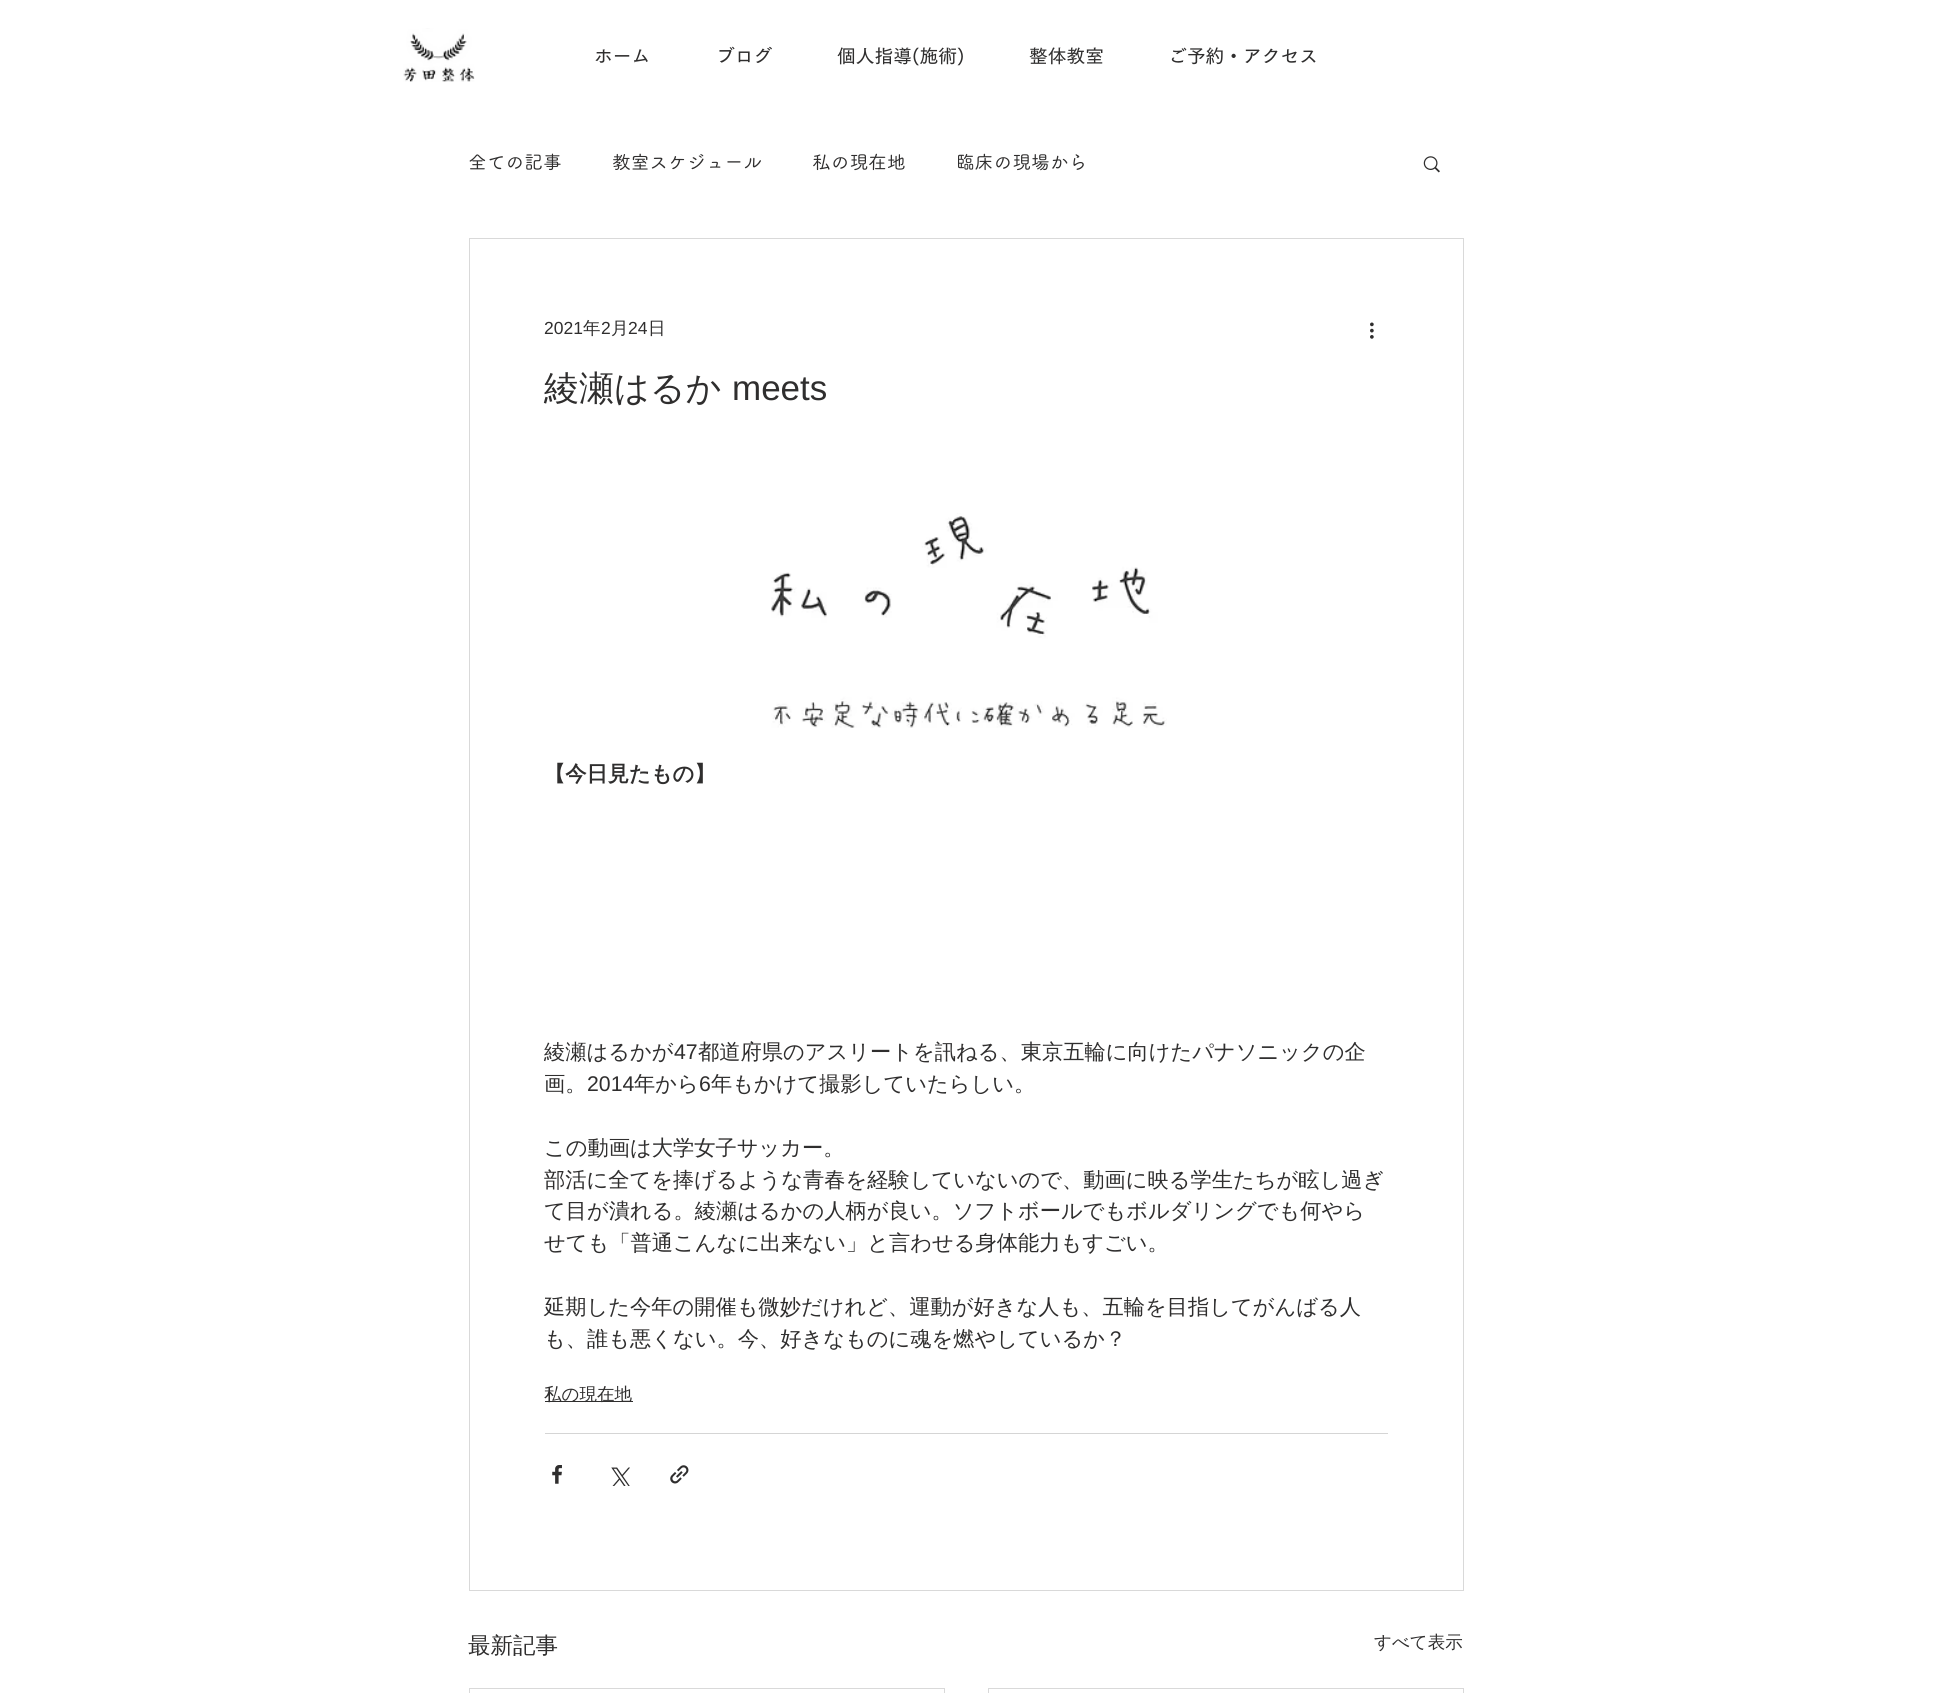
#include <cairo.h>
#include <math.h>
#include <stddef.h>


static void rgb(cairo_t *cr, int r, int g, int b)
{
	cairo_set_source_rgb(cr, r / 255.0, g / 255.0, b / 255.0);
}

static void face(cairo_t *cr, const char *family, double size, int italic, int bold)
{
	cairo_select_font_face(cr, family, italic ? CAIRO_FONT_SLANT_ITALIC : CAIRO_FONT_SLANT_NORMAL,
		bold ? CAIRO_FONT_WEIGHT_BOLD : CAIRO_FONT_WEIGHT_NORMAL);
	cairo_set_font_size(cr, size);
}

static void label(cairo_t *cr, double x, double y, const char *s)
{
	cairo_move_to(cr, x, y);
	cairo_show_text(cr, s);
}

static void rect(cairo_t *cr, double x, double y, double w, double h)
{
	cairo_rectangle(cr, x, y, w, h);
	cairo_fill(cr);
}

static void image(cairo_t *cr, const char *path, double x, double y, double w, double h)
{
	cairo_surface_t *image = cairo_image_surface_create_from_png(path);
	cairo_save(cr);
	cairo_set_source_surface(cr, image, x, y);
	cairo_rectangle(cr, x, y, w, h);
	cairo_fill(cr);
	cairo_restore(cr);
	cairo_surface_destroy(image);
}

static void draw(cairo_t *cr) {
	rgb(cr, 255, 255, 255);
	cairo_paint(cr);
	image(cr, "image0.png", 403, 28, 72, 54);
	face(cr, "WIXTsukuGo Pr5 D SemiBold", 18.75, 0, 0);
	rgb(cr, 47, 46, 46);
	label(cr, 594, 63, "ホーム");
	label(cr, 716, 63, "ブログ");
	label(cr, 837, 63, "個人指導(施術)");
	label(cr, 1029, 63, "整体教室");
	label(cr, 1168, 63, "ご予約・アクセス");
	face(cr, "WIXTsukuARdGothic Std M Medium", 18.75, 0, 0);
	label(cr, 468, 169, "全ての記事");
	label(cr, 612, 169, "教室スケジュール");
	label(cr, 812, 169, "私の現在地");
	label(cr, 956, 169, "臨床の現場から");
	image(cr, "image1.png", 1423, 156, 17, 17);
	cairo_rectangle(cr, 469.5, 238.5, 994, 1352);
	rgb(cr, 217, 217, 217);
	cairo_set_line_width(cr, 1);
	cairo_stroke(cr);
	face(cr, "Liberation Sans", 17.5, 0, 0);
	rgb(cr, 47, 46, 46);
	label(cr, 544, 334, "2021");
	face(cr, "WenQuanYi Zen Hei Medium", 17.5, 0, 0);
	label(cr, 583, 334, "年");
	face(cr, "Liberation Sans", 17.5, 0, 0);
	label(cr, 601, 334, "2");
	face(cr, "WenQuanYi Zen Hei Medium", 17.5, 0, 0);
	label(cr, 611, 334, "月");
	face(cr, "Liberation Sans", 17.5, 0, 0);
	label(cr, 628, 334, "24");
	face(cr, "WenQuanYi Zen Hei Medium", 17.5, 0, 0);
	label(cr, 648, 334, "日");
	image(cr, "image2.png", 1370, 322, 4, 17);
	face(cr, "WenQuanYi Zen Hei Medium", 35, 0, 0);
	label(cr, 544, 400, "綾瀬はるか");
	face(cr, "Liberation Sans", 35, 0, 0);
	label(cr, 732, 400, "meets");
	image(cr, "image3.png", 771, 513, 396, 215);
	face(cr, "WenQuanYi Zen Hei", 21.25, 0, 1);
	label(cr, 544, 781, "【今日見たもの】");
	face(cr, "WenQuanYi Zen Hei Medium", 21.25, 0, 0);
	label(cr, 544, 1059, "綾瀬はるかが");
	face(cr, "Liberation Sans", 21.25, 0, 0);
	label(cr, 674, 1059, "47");
	face(cr, "WenQuanYi Zen Hei Medium", 21.25, 0, 0);
	label(cr, 698, 1059, "都道府県のアスリートを訊ねる、東京五輪に向けたパナソニックの企");
	label(cr, 544, 1091, "画。");
	face(cr, "Liberation Sans", 21.25, 0, 0);
	label(cr, 587, 1091, "2014");
	face(cr, "WenQuanYi Zen Hei Medium", 21.25, 0, 0);
	label(cr, 634, 1091, "年から");
	face(cr, "Liberation Sans", 21.25, 0, 0);
	label(cr, 699, 1091, "6");
	face(cr, "WenQuanYi Zen Hei Medium", 21.25, 0, 0);
	label(cr, 711, 1091, "年もかけて撮影していたらしい。");
	label(cr, 544, 1155, "この動画は大学女子サッカー。");
	label(cr, 544, 1187, "部活に全てを捧げるような青春を経験していないので、動画に映る学生たちが眩し過ぎ");
	label(cr, 544, 1218, "て目が潰れる。綾瀬はるかの人柄が良い。ソフトボールでもボルダリングでも何やら");
	label(cr, 544, 1250, "せても「普通こんなに出来ない」と言わせる身体能力もすごい。");
	label(cr, 544, 1314, "延期した今年の開催も微妙だけれど、運動が好きな人も、五輪を目指してがんばる人");
	label(cr, 544, 1346, "も、誰も悪くない。今、好きなものに魂を燃やしているか？");
	rect(cr, 545, 1401, 88, 1);
	face(cr, "WenQuanYi Zen Hei Medium", 17.5, 0, 0);
	label(cr, 544, 1400, "私の現在地");
	rgb(cr, 213, 213, 213);
	rect(cr, 545, 1433, 843, 1);
	image(cr, "image4.png", 552, 1465, 10, 19);
	image(cr, "image5.png", 611, 1467, 19, 19);
	image(cr, "image6.png", 670, 1465, 19, 19);
	face(cr, "WenQuanYi Zen Hei Medium", 22.5, 0, 0);
	rgb(cr, 47, 46, 46);
	label(cr, 468, 1653, "最新記事");
	face(cr, "WenQuanYi Zen Hei Medium", 17.5, 0, 0);
	label(cr, 1374, 1648, "すべて表示");
	cairo_rectangle(cr, 469.5, 1688.5, 475, 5);
	rgb(cr, 217, 217, 217);
	cairo_stroke(cr);
	cairo_rectangle(cr, 988.5, 1688.5, 475, 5);
	cairo_stroke(cr);
}

int main(void) {
	cairo_surface_t *surface = cairo_image_surface_create(CAIRO_FORMAT_RGB24, 1933, 1693);
	cairo_t *cr = cairo_create(surface);
	cairo_font_options_t *options = cairo_font_options_create();
	cairo_font_options_set_hint_metrics(options, CAIRO_HINT_METRICS_OFF);
	cairo_font_options_set_hint_style(options, CAIRO_HINT_STYLE_NONE);
	cairo_set_font_options(cr, options);
	cairo_set_miter_limit(cr, 4);
	draw(cr);
	cairo_surface_write_to_png(surface, "render.png");
	cairo_font_options_destroy(options);
	cairo_destroy(cr);
	cairo_surface_destroy(surface);
	return 0;
}
